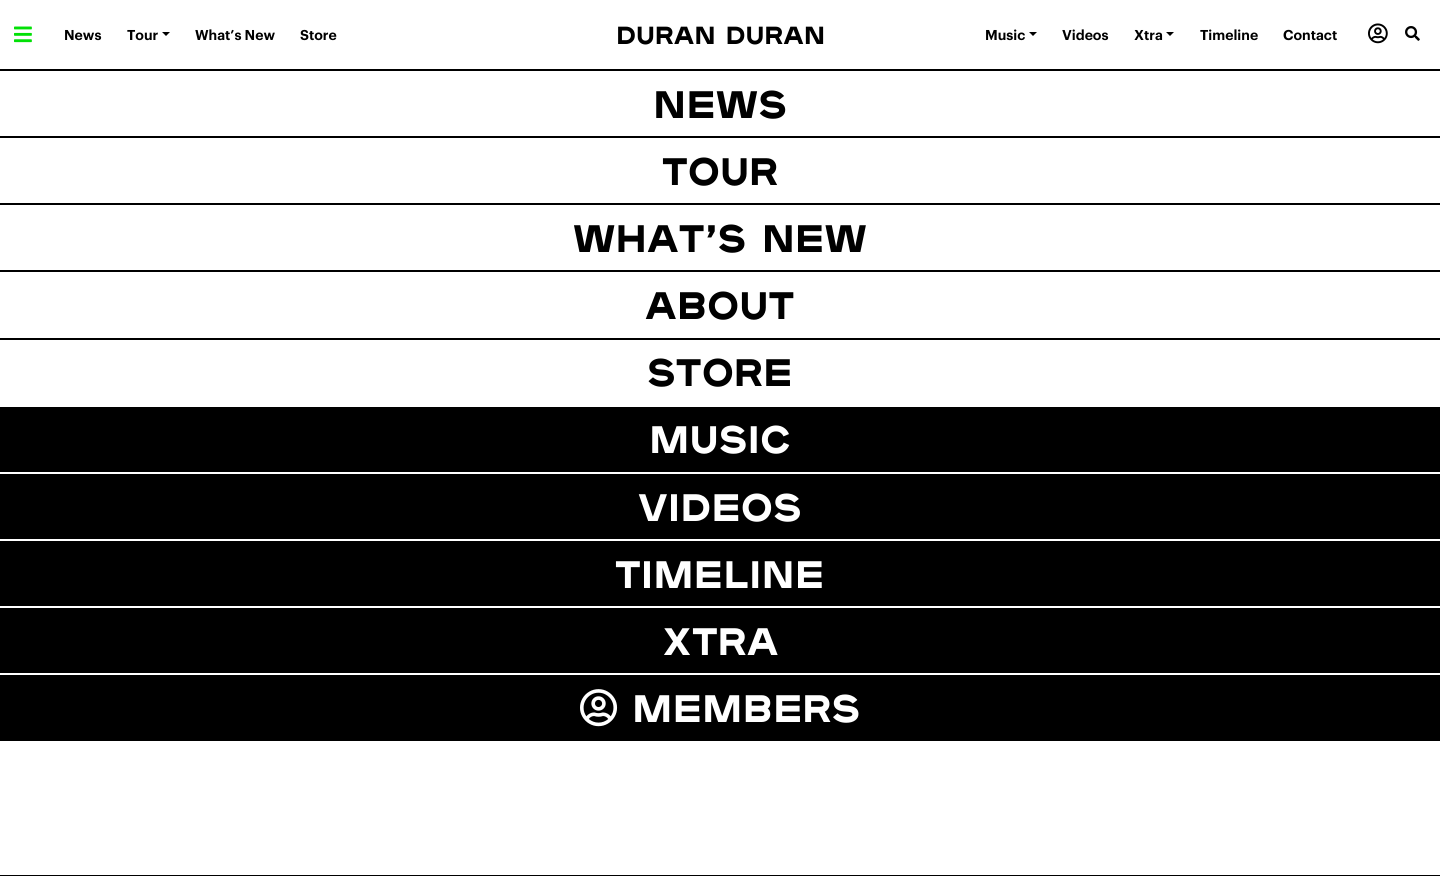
#include <cairo.h>
#include <math.h>
#include <stddef.h>


static void rgb(cairo_t *cr, int r, int g, int b)
{
	cairo_set_source_rgb(cr, r / 255.0, g / 255.0, b / 255.0);
}

static void face(cairo_t *cr, const char *family, double size, int italic, int bold)
{
	cairo_select_font_face(cr, family, italic ? CAIRO_FONT_SLANT_ITALIC : CAIRO_FONT_SLANT_NORMAL,
		bold ? CAIRO_FONT_WEIGHT_BOLD : CAIRO_FONT_WEIGHT_NORMAL);
	cairo_set_font_size(cr, size);
}

static void label(cairo_t *cr, double x, double y, const char *s)
{
	cairo_move_to(cr, x, y);
	cairo_show_text(cr, s);
}

static void rect(cairo_t *cr, double x, double y, double w, double h)
{
	cairo_rectangle(cr, x, y, w, h);
	cairo_fill(cr);
}

static void image(cairo_t *cr, const char *path, double x, double y, double w, double h)
{
	cairo_surface_t *image = cairo_image_surface_create_from_png(path);
	cairo_save(cr);
	cairo_set_source_surface(cr, image, x, y);
	cairo_rectangle(cr, x, y, w, h);
	cairo_fill(cr);
	cairo_restore(cr);
	cairo_surface_destroy(image);
}

static void draw(cairo_t *cr) {
	rgb(cr, 0, 0, 0);
	cairo_paint(cr);
	rgb(cr, 255, 255, 255);
	rect(cr, 0, 0, 1440, 69);
	face(cr, "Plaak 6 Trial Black", 24.75, 0, 0);
	rgb(cr, 0, 0, 0);
	label(cr, 616, 44, "Duran Duran");
	image(cr, "image0.png", 1368, 23, 20, 21);
	image(cr, "image1.png", 1405, 26, 15, 15);
	face(cr, "Graphik SemiBold", 14, 0, 0);
	label(cr, 64, 40, "News");
	label(cr, 127, 40, "Tour");
	cairo_new_path(cr);
	cairo_move_to(cr, 162, 32);
	cairo_line_to(cr, 170, 32);
	cairo_line_to(cr, 166, 36);
	cairo_close_path(cr);
	cairo_fill(cr);
	label(cr, 195, 40, "What’s New");
	label(cr, 300, 40, "Store");
	image(cr, "image2.png", 14, 26, 18, 17);
	rgb(cr, 255, 255, 255);
	rect(cr, 0, 71, 1440, 804);
	face(cr, "Plaak 6 Trial Black", 38.25, 0, 0);
	rgb(cr, 0, 0, 0);
	label(cr, 653, 118, "News");
	rect(cr, 0, 136, 1440, 2);
	label(cr, 662, 185, "Tour");
	rect(cr, 0, 203, 1440, 2);
	label(cr, 573, 252, "What’s New");
	rect(cr, 0, 270, 1440, 2);
	label(cr, 645, 319, "About");
	rect(cr, 0, 338, 1440, 2);
	label(cr, 647, 386, "Store");
	rect(cr, 0, 407, 1440, 65);
	rgb(cr, 255, 255, 255);
	label(cr, 649, 453, "Music");
	rgb(cr, 0, 0, 0);
	rect(cr, 0, 474, 1440, 65);
	rgb(cr, 255, 255, 255);
	label(cr, 638, 521, "Videos");
	rgb(cr, 0, 0, 0);
	rect(cr, 0, 541, 1440, 65);
	rgb(cr, 255, 255, 255);
	label(cr, 615, 588, "Timeline");
	rgb(cr, 0, 0, 0);
	rect(cr, 0, 608, 1440, 65);
	rgb(cr, 255, 255, 255);
	label(cr, 662, 655, "Xtra");
	rgb(cr, 0, 0, 0);
	rect(cr, 0, 675, 1440, 66);
	image(cr, "image3.png", 580, 689, 38, 38);
	rgb(cr, 255, 255, 255);
	label(cr, 632, 722, "Members");
	face(cr, "Graphik SemiBold", 14, 0, 0);
	rgb(cr, 0, 0, 0);
	label(cr, 985, 40, "Music");
	cairo_new_path(cr);
	cairo_move_to(cr, 1029, 32);
	cairo_line_to(cr, 1037, 32);
	cairo_line_to(cr, 1033, 36);
	cairo_close_path(cr);
	cairo_fill(cr);
	label(cr, 1062, 40, "Videos");
	label(cr, 1134, 40, "Xtra");
	cairo_new_path(cr);
	cairo_move_to(cr, 1166, 32);
	cairo_line_to(cr, 1174, 32);
	cairo_line_to(cr, 1170, 36);
	cairo_close_path(cr);
	cairo_fill(cr);
	label(cr, 1200, 40, "Timeline");
	label(cr, 1283, 40, "Contact");
}

int main(void) {
	cairo_surface_t *surface = cairo_image_surface_create(CAIRO_FORMAT_RGB24, 1440, 876);
	cairo_t *cr = cairo_create(surface);
	cairo_font_options_t *options = cairo_font_options_create();
	cairo_font_options_set_hint_metrics(options, CAIRO_HINT_METRICS_OFF);
	cairo_font_options_set_hint_style(options, CAIRO_HINT_STYLE_NONE);
	cairo_set_font_options(cr, options);
	cairo_set_miter_limit(cr, 4);
	draw(cr);
	cairo_surface_write_to_png(surface, "render.png");
	cairo_font_options_destroy(options);
	cairo_destroy(cr);
	cairo_surface_destroy(surface);
	return 0;
}
